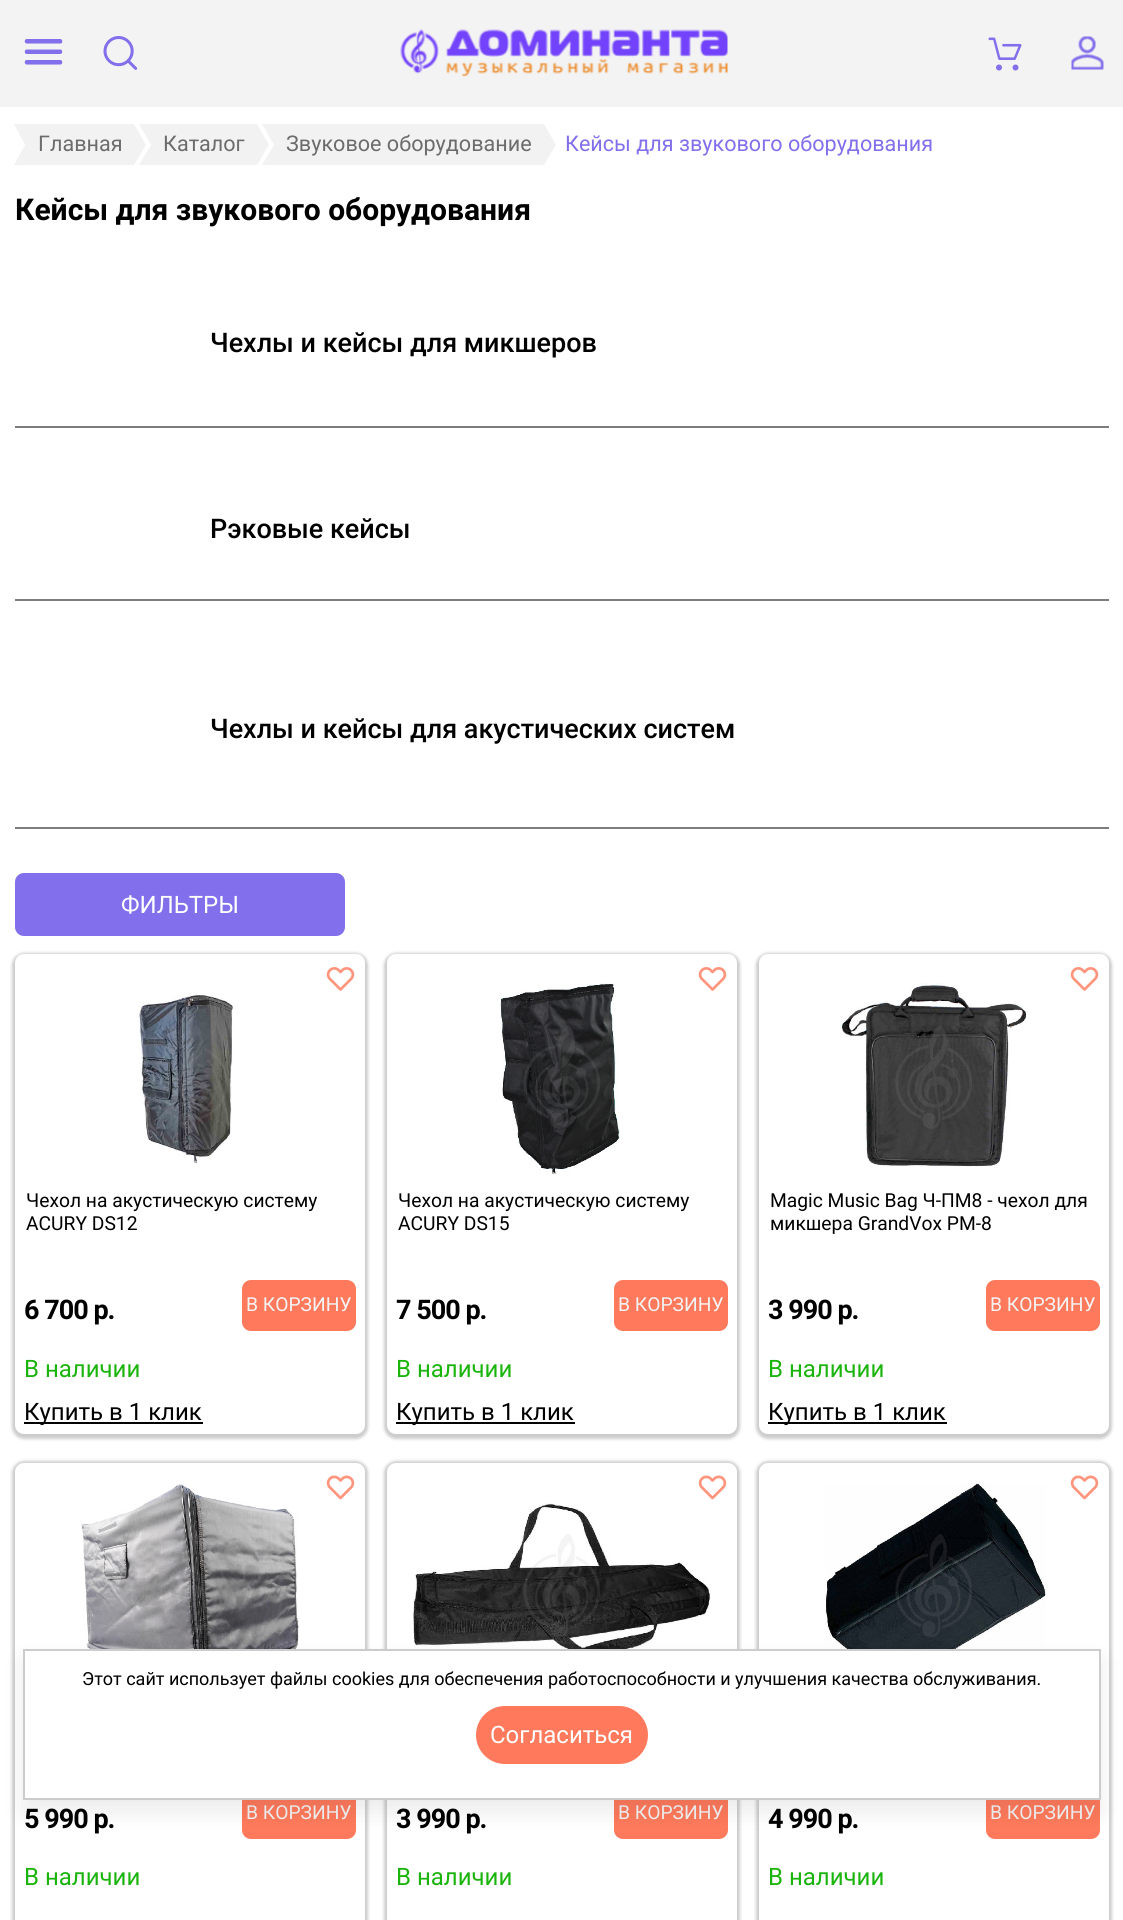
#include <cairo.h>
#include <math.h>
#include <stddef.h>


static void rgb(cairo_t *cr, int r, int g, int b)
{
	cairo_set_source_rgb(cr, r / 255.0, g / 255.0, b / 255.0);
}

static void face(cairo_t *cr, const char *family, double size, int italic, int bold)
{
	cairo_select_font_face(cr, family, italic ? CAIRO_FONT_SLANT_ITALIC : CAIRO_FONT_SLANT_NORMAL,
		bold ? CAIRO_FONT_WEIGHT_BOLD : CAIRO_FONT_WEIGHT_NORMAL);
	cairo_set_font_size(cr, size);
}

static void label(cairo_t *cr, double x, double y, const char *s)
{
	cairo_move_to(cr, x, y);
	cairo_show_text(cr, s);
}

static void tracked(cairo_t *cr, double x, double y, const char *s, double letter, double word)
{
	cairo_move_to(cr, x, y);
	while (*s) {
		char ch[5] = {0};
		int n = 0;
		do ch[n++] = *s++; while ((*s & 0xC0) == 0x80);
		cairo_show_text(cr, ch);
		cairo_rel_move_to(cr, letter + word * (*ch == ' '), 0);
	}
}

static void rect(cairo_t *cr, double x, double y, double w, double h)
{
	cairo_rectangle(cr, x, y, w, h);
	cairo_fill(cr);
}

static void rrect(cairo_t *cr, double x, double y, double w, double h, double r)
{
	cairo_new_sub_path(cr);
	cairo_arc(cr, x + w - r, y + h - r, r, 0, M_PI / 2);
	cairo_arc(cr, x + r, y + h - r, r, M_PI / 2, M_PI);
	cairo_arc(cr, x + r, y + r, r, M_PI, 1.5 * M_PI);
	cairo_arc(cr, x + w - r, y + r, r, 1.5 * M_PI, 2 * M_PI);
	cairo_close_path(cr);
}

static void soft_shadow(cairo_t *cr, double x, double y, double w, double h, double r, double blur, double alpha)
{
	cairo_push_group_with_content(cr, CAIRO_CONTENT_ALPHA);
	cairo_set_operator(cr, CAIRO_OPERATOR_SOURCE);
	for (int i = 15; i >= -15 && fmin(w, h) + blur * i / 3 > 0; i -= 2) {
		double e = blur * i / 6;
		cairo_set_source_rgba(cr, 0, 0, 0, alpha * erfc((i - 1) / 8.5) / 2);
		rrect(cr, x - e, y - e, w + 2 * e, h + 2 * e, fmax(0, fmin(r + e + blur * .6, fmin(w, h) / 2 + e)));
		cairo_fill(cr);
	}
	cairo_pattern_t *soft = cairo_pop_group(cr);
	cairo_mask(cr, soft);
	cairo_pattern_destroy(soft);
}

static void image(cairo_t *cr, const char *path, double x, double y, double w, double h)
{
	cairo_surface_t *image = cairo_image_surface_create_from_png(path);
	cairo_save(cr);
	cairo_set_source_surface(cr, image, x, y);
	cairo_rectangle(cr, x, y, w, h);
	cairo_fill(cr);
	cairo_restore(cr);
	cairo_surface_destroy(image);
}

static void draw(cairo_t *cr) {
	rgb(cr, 255, 255, 255);
	cairo_paint(cr);
	rgb(cr, 243, 243, 243);
	rect(cr, 0, 0, 1123, 107);
	image(cr, "image0.png", 24, 39, 39, 26);
	image(cr, "image1.png", 103, 36, 35, 34);
	image(cr, "image2.png", 400, 29, 328, 48);
	image(cr, "image3.png", 988, 37, 34, 34);
	image(cr, "image4.png", 1071, 36, 33, 34);
	rgb(cr, 242, 242, 242);
	cairo_new_path(cr);
	cairo_move_to(cr, 14, 124);
	cairo_line_to(cr, 134, 124);
	cairo_line_to(cr, 146, 145);
	cairo_line_to(cr, 25, 145);
	cairo_close_path(cr);
	cairo_fill(cr);
	cairo_new_path(cr);
	cairo_move_to(cr, 25, 145);
	cairo_line_to(cr, 146, 145);
	cairo_line_to(cr, 134, 165);
	cairo_line_to(cr, 14, 165);
	cairo_close_path(cr);
	cairo_fill(cr);
	face(cr, "Roboto", 21.6, 0, 0);
	rgb(cr, 108, 108, 108);
	label(cr, 38, 151, "Главная");
	rgb(cr, 242, 242, 242);
	cairo_new_path(cr);
	cairo_move_to(cr, 139, 124);
	cairo_line_to(cr, 257, 124);
	cairo_line_to(cr, 269, 145);
	cairo_line_to(cr, 151, 145);
	cairo_close_path(cr);
	cairo_fill(cr);
	cairo_new_path(cr);
	cairo_move_to(cr, 151, 145);
	cairo_line_to(cr, 269, 145);
	cairo_line_to(cr, 257, 165);
	cairo_line_to(cr, 139, 165);
	cairo_close_path(cr);
	cairo_fill(cr);
	rgb(cr, 108, 108, 108);
	label(cr, 163, 151, "Каталог");
	rgb(cr, 242, 242, 242);
	cairo_new_path(cr);
	cairo_move_to(cr, 262, 124);
	cairo_line_to(cr, 544, 124);
	cairo_line_to(cr, 556, 145);
	cairo_line_to(cr, 274, 145);
	cairo_close_path(cr);
	cairo_fill(cr);
	cairo_new_path(cr);
	cairo_move_to(cr, 274, 145);
	cairo_line_to(cr, 556, 145);
	cairo_line_to(cr, 544, 165);
	cairo_line_to(cr, 262, 165);
	cairo_close_path(cr);
	cairo_fill(cr);
	rgb(cr, 108, 108, 108);
	label(cr, 286, 151, "Звуковое оборудование");
	rgb(cr, 130, 111, 235);
	label(cr, 565, 151, "Кейсы для звукового оборудования");
	face(cr, "Roboto", 30, 0, 1);
	rgb(cr, 0, 0, 0);
	label(cr, 15, 220, "Кейсы для звукового оборудования");
	rgb(cr, 124, 124, 124);
	rect(cr, 15, 426, 1094, 2);
	face(cr, "Roboto Medium", 27, 0, 0);
	rgb(cr, 0, 0, 0);
	label(cr, 210, 352, "Чехлы и кейсы для микшеров");
	rgb(cr, 124, 124, 124);
	rect(cr, 15, 599, 1094, 2);
	rgb(cr, 0, 0, 0);
	label(cr, 210, 538, "Рэковые кейсы");
	rgb(cr, 124, 124, 124);
	rect(cr, 15, 827, 1094, 2);
	rgb(cr, 0, 0, 0);
	label(cr, 210, 738, "Чехлы и кейсы для акустических систем");
	rgb(cr, 130, 111, 235);
	rrect(cr, 15, 873, 330, 63, 9);
	cairo_fill(cr);
	face(cr, "Roboto", 24, 0, 0);
	rgb(cr, 255, 255, 255);
	label(cr, 121, 913, "ФИЛЬТРЫ");
	rgb(cr, 0, 0, 0);
	soft_shadow(cr, 12, 953, 356, 486, 12, 1.5, 0.2);
	rgb(cr, 255, 255, 255);
	rrect(cr, 15, 954, 350, 480, 9);
	cairo_fill(cr);
	image(cr, "image5.png", 326, 967, 29, 24);
	image(cr, "image6.png", 138, 995, 95, 169);
	face(cr, "Roboto", 19.25, 0, 0);
	rgb(cr, 0, 0, 0);
	label(cr, 26, 1207, "Чехол на акустическую систему");
	label(cr, 26, 1230, "ACURY DS12");
	face(cr, "Roboto", 27, 0, 1);
	tracked(cr, 24, 1319, "6 700 р.", -1, 0);
	rgb(cr, 255, 122, 92);
	rrect(cr, 243, 1281, 112, 49, 8);
	cairo_fill_preserve(cr);
	cairo_stroke(cr);
	face(cr, "Roboto", 19.25, 0, 0);
	rgb(cr, 243, 243, 243);
	label(cr, 246, 1311, "В КОРЗИНУ");
	face(cr, "Roboto", 24, 0, 0);
	rgb(cr, 27, 180, 13);
	label(cr, 24, 1377, "В наличии");
	rgb(cr, 0, 0, 0);
	rect(cr, 24, 1422, 179, 2);
	label(cr, 24, 1420, "Купить в 1 клик");
	rgb(cr, 0, 0, 0);
	soft_shadow(cr, 384, 953, 356, 486, 12, 1.5, 0.2);
	rgb(cr, 255, 255, 255);
	rrect(cr, 387, 954, 350, 480, 9);
	cairo_fill(cr);
	image(cr, "image5.png", 698, 967, 29, 24);
	image(cr, "image7.png", 500, 983, 123, 192);
	face(cr, "Roboto", 19.25, 0, 0);
	rgb(cr, 0, 0, 0);
	label(cr, 398, 1207, "Чехол на акустическую систему");
	label(cr, 398, 1230, "ACURY DS15");
	face(cr, "Roboto", 27, 0, 1);
	tracked(cr, 396, 1319, "7 500 р.", -1, 0);
	rgb(cr, 255, 122, 92);
	rrect(cr, 615, 1281, 112, 49, 8);
	cairo_fill_preserve(cr);
	cairo_stroke(cr);
	face(cr, "Roboto", 19.25, 0, 0);
	rgb(cr, 243, 243, 243);
	label(cr, 618, 1311, "В КОРЗИНУ");
	face(cr, "Roboto", 24, 0, 0);
	rgb(cr, 27, 180, 13);
	label(cr, 396, 1377, "В наличии");
	rgb(cr, 0, 0, 0);
	rect(cr, 396, 1422, 179, 2);
	label(cr, 396, 1420, "Купить в 1 клик");
	rgb(cr, 0, 0, 0);
	soft_shadow(cr, 756, 953, 356, 486, 12, 1.5, 0.2);
	rgb(cr, 255, 255, 255);
	rrect(cr, 759, 954, 350, 480, 9);
	cairo_fill(cr);
	image(cr, "image5.png", 1070, 967, 29, 24);
	image(cr, "image8.png", 840, 983, 188, 184);
	face(cr, "Roboto", 19.25, 0, 0);
	rgb(cr, 0, 0, 0);
	label(cr, 770, 1207, "Magic Music Bag Ч-ПМ8 - чехол для");
	label(cr, 770, 1230, "микшера GrandVox PM-8");
	face(cr, "Roboto", 27, 0, 1);
	tracked(cr, 768, 1319, "3 990 р.", -1, 0);
	rgb(cr, 255, 122, 92);
	rrect(cr, 987, 1281, 112, 49, 8);
	cairo_fill_preserve(cr);
	cairo_stroke(cr);
	face(cr, "Roboto", 19.25, 0, 0);
	rgb(cr, 243, 243, 243);
	label(cr, 990, 1311, "В КОРЗИНУ");
	face(cr, "Roboto", 24, 0, 0);
	rgb(cr, 27, 180, 13);
	label(cr, 768, 1377, "В наличии");
	rgb(cr, 0, 0, 0);
	rect(cr, 768, 1422, 179, 2);
	label(cr, 768, 1420, "Купить в 1 клик");
	rgb(cr, 0, 0, 0);
	soft_shadow(cr, 12, 1461, 356, 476, 12, 1.5, 0.2);
	rgb(cr, 255, 255, 255);
	rrect(cr, 15, 1463, 350, 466, 9);
	cairo_fill(cr);
	image(cr, "image9.png", 81, 1482, 218, 167);
	image(cr, "image10.png", 326, 1475, 29, 25);
	face(cr, "Roboto", 27, 0, 1);
	rgb(cr, 0, 0, 0);
	tracked(cr, 24, 1828, "5 990 р.", -1, 0);
	rgb(cr, 255, 122, 92);
	rrect(cr, 243, 1789, 112, 49, 8);
	cairo_fill_preserve(cr);
	cairo_stroke(cr);
	face(cr, "Roboto", 19.25, 0, 0);
	rgb(cr, 243, 243, 243);
	label(cr, 246, 1819, "В КОРЗИНУ");
	face(cr, "Roboto", 24, 0, 0);
	rgb(cr, 27, 180, 13);
	label(cr, 24, 1885, "В наличии");
	rgb(cr, 0, 0, 0);
	soft_shadow(cr, 384, 1461, 356, 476, 12, 1.5, 0.2);
	rgb(cr, 255, 255, 255);
	rrect(cr, 387, 1463, 350, 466, 9);
	cairo_fill(cr);
	image(cr, "image10.png", 698, 1475, 29, 25);
	image(cr, "image11.png", 413, 1503, 298, 146);
	face(cr, "Roboto", 27, 0, 1);
	rgb(cr, 0, 0, 0);
	tracked(cr, 396, 1828, "3 990 р.", -1, 0);
	rgb(cr, 255, 122, 92);
	rrect(cr, 615, 1789, 112, 49, 8);
	cairo_fill_preserve(cr);
	cairo_stroke(cr);
	face(cr, "Roboto", 19.25, 0, 0);
	rgb(cr, 243, 243, 243);
	label(cr, 618, 1819, "В КОРЗИНУ");
	face(cr, "Roboto", 24, 0, 0);
	rgb(cr, 27, 180, 13);
	label(cr, 396, 1885, "В наличии");
	rgb(cr, 0, 0, 0);
	soft_shadow(cr, 756, 1461, 356, 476, 12, 1.5, 0.2);
	rgb(cr, 255, 255, 255);
	rrect(cr, 759, 1463, 350, 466, 9);
	cairo_fill(cr);
	image(cr, "image12.png", 825, 1483, 221, 166);
	image(cr, "image10.png", 1070, 1475, 29, 25);
	face(cr, "Roboto", 27, 0, 1);
	rgb(cr, 0, 0, 0);
	tracked(cr, 768, 1828, "4 990 р.", -1, 0);
	rgb(cr, 255, 122, 92);
	rrect(cr, 987, 1789, 112, 49, 8);
	cairo_fill_preserve(cr);
	cairo_stroke(cr);
	face(cr, "Roboto", 19.25, 0, 0);
	rgb(cr, 243, 243, 243);
	label(cr, 990, 1819, "В КОРЗИНУ");
	face(cr, "Roboto", 24, 0, 0);
	rgb(cr, 27, 180, 13);
	label(cr, 768, 1885, "В наличии");
	rgb(cr, 0, 0, 0);
	soft_shadow(cr, 23, 1661, 1078, 151, 0, 12, 0.08);
	rgb(cr, 255, 255, 255);
	cairo_rectangle(cr, 24, 1650, 1076, 149);
	cairo_fill_preserve(cr);
	rgb(cr, 204, 204, 204);
	cairo_stroke(cr);
	face(cr, "Roboto", 18, 0, 0);
	rgb(cr, 0, 0, 0);
	label(cr, 82, 1685, "Этот сайт использует файлы cookies для обеспечения работоспособности и улучшения качества обслуживания.");
	rgb(cr, 255, 122, 92);
	rrect(cr, 475, 1705, 174, 60, 30);
	cairo_fill_preserve(cr);
	rgb(cr, 255, 255, 255);
	cairo_stroke(cr);
	face(cr, "Roboto", 24, 0, 0);
	label(cr, 490, 1743, "Согласиться");
}

int main(void) {
	cairo_surface_t *surface = cairo_image_surface_create(CAIRO_FORMAT_RGB24, 1123, 1920);
	cairo_t *cr = cairo_create(surface);
	cairo_font_options_t *options = cairo_font_options_create();
	cairo_font_options_set_hint_metrics(options, CAIRO_HINT_METRICS_OFF);
	cairo_font_options_set_hint_style(options, CAIRO_HINT_STYLE_NONE);
	cairo_set_font_options(cr, options);
	cairo_set_miter_limit(cr, 4);
	draw(cr);
	cairo_surface_write_to_png(surface, "render.png");
	cairo_font_options_destroy(options);
	cairo_destroy(cr);
	cairo_surface_destroy(surface);
	return 0;
}
